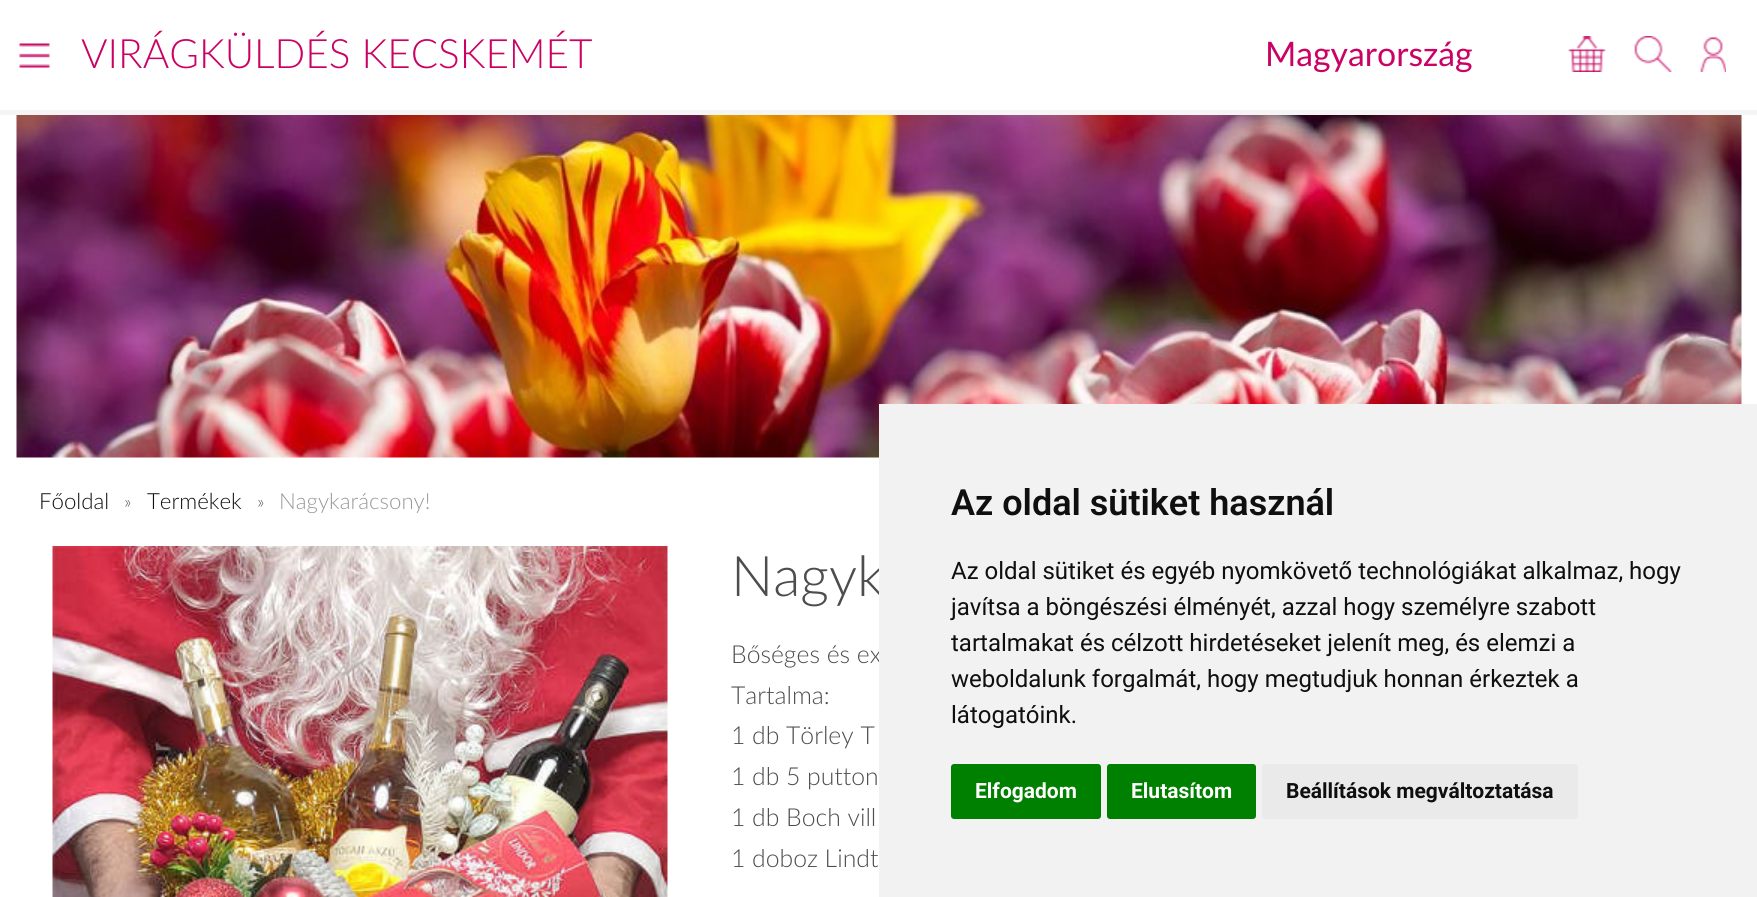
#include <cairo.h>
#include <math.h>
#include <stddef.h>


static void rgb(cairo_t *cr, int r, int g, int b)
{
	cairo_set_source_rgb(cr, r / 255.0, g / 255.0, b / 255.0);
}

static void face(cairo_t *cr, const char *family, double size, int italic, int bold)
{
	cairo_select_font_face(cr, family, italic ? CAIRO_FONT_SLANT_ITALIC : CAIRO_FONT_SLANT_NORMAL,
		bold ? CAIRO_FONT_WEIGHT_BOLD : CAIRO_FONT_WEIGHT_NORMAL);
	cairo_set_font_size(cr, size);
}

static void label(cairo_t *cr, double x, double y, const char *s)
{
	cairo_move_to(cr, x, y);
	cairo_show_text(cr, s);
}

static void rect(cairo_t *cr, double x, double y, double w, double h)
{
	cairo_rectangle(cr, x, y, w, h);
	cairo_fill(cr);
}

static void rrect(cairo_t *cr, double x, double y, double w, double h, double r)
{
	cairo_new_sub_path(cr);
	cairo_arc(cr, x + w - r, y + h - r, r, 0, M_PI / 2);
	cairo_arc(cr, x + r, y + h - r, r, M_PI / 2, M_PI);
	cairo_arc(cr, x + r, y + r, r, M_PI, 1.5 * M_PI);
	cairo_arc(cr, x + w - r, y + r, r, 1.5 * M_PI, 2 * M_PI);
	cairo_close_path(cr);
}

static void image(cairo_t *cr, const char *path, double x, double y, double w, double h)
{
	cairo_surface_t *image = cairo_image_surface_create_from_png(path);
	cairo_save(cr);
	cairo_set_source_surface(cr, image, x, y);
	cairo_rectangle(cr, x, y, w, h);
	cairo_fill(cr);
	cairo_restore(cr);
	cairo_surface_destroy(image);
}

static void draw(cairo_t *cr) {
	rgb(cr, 255, 255, 255);
	cairo_paint(cr);
	rgb(cr, 245, 245, 245);
	rect(cr, 0, 110, 1757, 5);
	image(cr, "image0.png", 19, 43, 31, 25);
	face(cr, "Lato Light", 40.5, 0, 0);
	rgb(cr, 202, 2, 100);
	label(cr, 81, 68, "VIRÁGKÜLDÉS KECSKEMÉT");
	face(cr, "Lato", 33.75, 0, 0);
	label(cr, 1265, 66, "Magyarország");
	image(cr, "image1.png", 1568, 36, 38, 36);
	image(cr, "image2.png", 1634, 36, 38, 36);
	image(cr, "image3.png", 1700, 37, 26, 35);
	image(cr, "image4.png", 16, 115, 1726, 343);
	face(cr, "Lato Light", 22.25, 0, 0);
	rgb(cr, 15, 15, 15);
	label(cr, 39, 509, "Főoldal");
	face(cr, "Lato Light", 18, 0, 0);
	rgb(cr, 77, 77, 77);
	label(cr, 124, 508, "»");
	face(cr, "Lato Light", 22.25, 0, 0);
	rgb(cr, 15, 15, 15);
	label(cr, 147, 509, "Termékek");
	face(cr, "Lato Light", 18, 0, 0);
	rgb(cr, 77, 77, 77);
	label(cr, 257, 508, "»");
	face(cr, "Lato Light", 22.25, 0, 0);
	rgb(cr, 153, 153, 153);
	label(cr, 279, 509, "Nagykarácsony!");
	image(cr, "image5.png", 52, 546, 616, 351);
	face(cr, "Lato Light", 56, 0, 0);
	rgb(cr, 77, 77, 77);
	label(cr, 731, 596, "Nagyk");
	face(cr, "Lato Light", 24.75, 0, 0);
	label(cr, 731, 663, "Bőséges és ex");
	label(cr, 731, 704, "Tartalma:");
	label(cr, 731, 744, "1 db Törley T");
	label(cr, 731, 785, "1 db 5 putton");
	label(cr, 731, 826, "1 db Boch vill");
	label(cr, 731, 867, "1 doboz Lindt");
	rgb(cr, 242, 242, 242);
	rect(cr, 879, 404, 878, 493);
	face(cr, "Roboto SemiBold", 36, 0, 0);
	rgb(cr, 15, 15, 15);
	label(cr, 951, 515, "Az oldal sütiket használ");
	face(cr, "Roboto", 24, 0, 0);
	label(cr, 951, 579, "Az oldal sütiket és egyéb nyomkövető technológiákat alkalmaz, hogy");
	label(cr, 951, 615, "javítsa a böngészési élményét, azzal hogy személyre szabott");
	label(cr, 951, 651, "tartalmakat és célzott hirdetéseket jelenít meg, és elemzi a");
	label(cr, 951, 687, "weboldalunk forgalmát, hogy megtudjuk honnan érkeztek a");
	label(cr, 951, 723, "látogatóink.");
	rgb(cr, 0, 128, 0);
	rrect(cr, 951, 764, 150, 55, 3);
	cairo_fill(cr);
	face(cr, "Roboto", 21, 0, 1);
	rgb(cr, 255, 255, 255);
	label(cr, 975, 798, "Elfogadom");
	rgb(cr, 0, 128, 0);
	rrect(cr, 1107, 764, 149, 55, 3);
	cairo_fill(cr);
	rgb(cr, 255, 255, 255);
	label(cr, 1131, 798, "Elutasítom");
	rgb(cr, 234, 234, 234);
	rrect(cr, 1262, 764, 316, 55, 3);
	cairo_fill(cr);
	rgb(cr, 15, 15, 15);
	label(cr, 1286, 798, "Beállítások megváltoztatása");
}

int main(void) {
	cairo_surface_t *surface = cairo_image_surface_create(CAIRO_FORMAT_RGB24, 1757, 897);
	cairo_t *cr = cairo_create(surface);
	cairo_font_options_t *options = cairo_font_options_create();
	cairo_font_options_set_hint_metrics(options, CAIRO_HINT_METRICS_OFF);
	cairo_font_options_set_hint_style(options, CAIRO_HINT_STYLE_NONE);
	cairo_set_font_options(cr, options);
	cairo_set_miter_limit(cr, 4);
	draw(cr);
	cairo_surface_write_to_png(surface, "render.png");
	cairo_font_options_destroy(options);
	cairo_destroy(cr);
	cairo_surface_destroy(surface);
	return 0;
}
